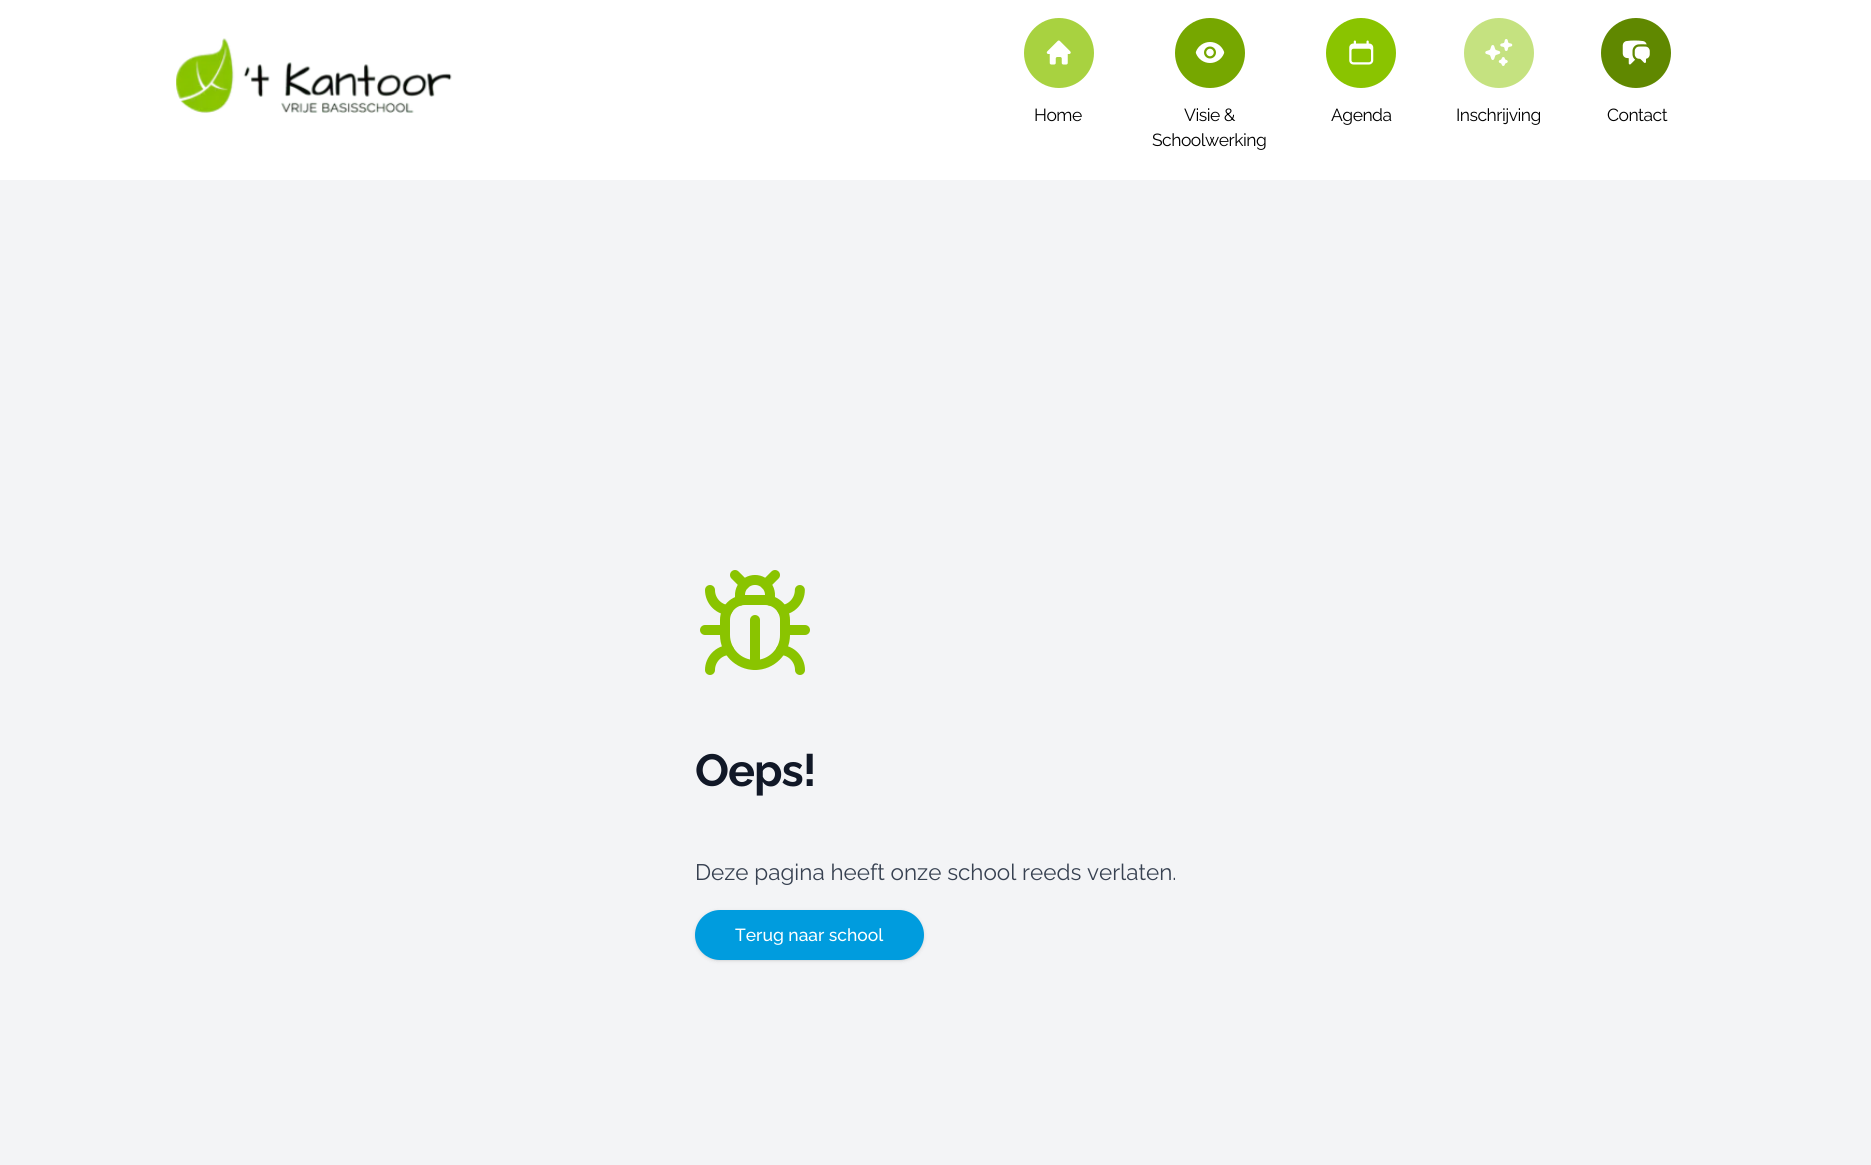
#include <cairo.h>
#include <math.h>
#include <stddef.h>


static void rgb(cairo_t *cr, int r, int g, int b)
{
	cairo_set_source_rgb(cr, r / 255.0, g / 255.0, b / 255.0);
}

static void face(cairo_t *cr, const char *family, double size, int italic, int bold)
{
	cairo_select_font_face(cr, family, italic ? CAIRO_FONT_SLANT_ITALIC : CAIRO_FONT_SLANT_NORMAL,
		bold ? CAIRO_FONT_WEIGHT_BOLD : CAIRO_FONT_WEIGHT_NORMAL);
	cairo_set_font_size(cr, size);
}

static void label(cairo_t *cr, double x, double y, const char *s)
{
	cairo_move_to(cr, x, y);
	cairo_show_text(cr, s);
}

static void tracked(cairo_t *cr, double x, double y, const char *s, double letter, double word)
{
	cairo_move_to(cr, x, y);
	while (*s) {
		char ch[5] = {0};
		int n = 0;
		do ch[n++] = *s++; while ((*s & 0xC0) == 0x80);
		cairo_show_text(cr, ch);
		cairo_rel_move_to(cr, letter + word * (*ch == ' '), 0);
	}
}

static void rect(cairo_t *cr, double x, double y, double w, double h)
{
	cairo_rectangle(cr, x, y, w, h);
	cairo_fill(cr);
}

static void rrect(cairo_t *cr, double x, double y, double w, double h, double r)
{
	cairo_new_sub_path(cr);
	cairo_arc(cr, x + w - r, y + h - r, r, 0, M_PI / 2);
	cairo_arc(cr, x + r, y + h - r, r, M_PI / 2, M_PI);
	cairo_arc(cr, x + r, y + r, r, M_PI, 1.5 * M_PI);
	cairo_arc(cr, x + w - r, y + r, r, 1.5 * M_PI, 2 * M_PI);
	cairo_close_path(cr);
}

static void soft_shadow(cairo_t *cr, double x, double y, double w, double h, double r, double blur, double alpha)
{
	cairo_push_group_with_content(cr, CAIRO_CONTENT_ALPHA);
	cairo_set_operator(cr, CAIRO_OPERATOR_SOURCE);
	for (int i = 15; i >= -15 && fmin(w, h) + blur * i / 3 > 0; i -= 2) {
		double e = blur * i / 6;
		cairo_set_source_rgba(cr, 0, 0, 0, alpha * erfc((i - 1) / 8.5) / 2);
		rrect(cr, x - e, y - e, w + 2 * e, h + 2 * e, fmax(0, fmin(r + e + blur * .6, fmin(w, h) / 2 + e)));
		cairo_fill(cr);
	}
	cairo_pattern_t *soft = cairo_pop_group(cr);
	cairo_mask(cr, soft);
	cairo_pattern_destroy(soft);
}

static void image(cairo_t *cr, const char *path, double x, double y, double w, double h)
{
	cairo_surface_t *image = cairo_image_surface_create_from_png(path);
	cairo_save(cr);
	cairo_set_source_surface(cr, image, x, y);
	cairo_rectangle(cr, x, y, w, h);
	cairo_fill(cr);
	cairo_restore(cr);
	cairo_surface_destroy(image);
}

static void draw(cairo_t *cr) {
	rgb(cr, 255, 255, 255);
	cairo_paint(cr);
	image(cr, "image0.png", 176, 38, 276, 75);
	rgb(cr, 168, 210, 64);
	cairo_arc(cr, 1059, 53, 35, 0, 2 * M_PI);
	cairo_fill(cr);
	image(cr, "image1.png", 1046, 40, 25, 25);
	face(cr, "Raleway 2 Thin", 17.5, 0, 0);
	rgb(cr, 0, 0, 0);
	tracked(cr, 1034, 121, "Home", -0.5, 0);
	rgb(cr, 118, 167, 0);
	cairo_new_path(cr);
	cairo_arc(cr, 1210, 53, 35, 0, 2 * M_PI);
	cairo_fill(cr);
	image(cr, "image2.png", 1195, 42, 30, 21);
	rgb(cr, 0, 0, 0);
	tracked(cr, 1184, 121, "Visie &", -0.5, 0);
	tracked(cr, 1152, 146, "Schoolwerking", -0.5, 0);
	rgb(cr, 138, 196, 0);
	cairo_new_path(cr);
	cairo_arc(cr, 1361, 53, 35, 0, 2 * M_PI);
	cairo_fill(cr);
	image(cr, "image3.png", 1349, 40, 25, 25);
	rgb(cr, 0, 0, 0);
	tracked(cr, 1331, 121, "Agenda", -0.5, 0);
	rgb(cr, 197, 226, 128);
	cairo_new_path(cr);
	cairo_arc(cr, 1499, 53, 35, 0, 2 * M_PI);
	cairo_fill(cr);
	image(cr, "image4.png", 1485, 39, 28, 27);
	rgb(cr, 0, 0, 0);
	tracked(cr, 1456, 121, "Inschrijving", -0.5, 0);
	rgb(cr, 96, 136, 0);
	cairo_new_path(cr);
	cairo_arc(cr, 1636, 53, 35, 0, 2 * M_PI);
	cairo_fill(cr);
	image(cr, "image5.png", 1622, 40, 28, 25);
	rgb(cr, 0, 0, 0);
	tracked(cr, 1607, 121, "Contact", -0.5, 0);
	rgb(cr, 243, 244, 246);
	rect(cr, 0, 180, 1871, 985);
	image(cr, "image6.png", 700, 570, 110, 105);
	face(cr, "Raleway Thin", 45, 0, 0);
	rgb(cr, 17, 24, 39);
	tracked(cr, 695, 786, "Oeps!", -1, 0);
	face(cr, "Raleway 2 Thin", 22.5, 0, 0);
	rgb(cr, 55, 65, 81);
	label(cr, 695, 880, "Deze pagina heeft onze school reeds verlaten.");
	rgb(cr, 0, 0, 0);
	soft_shadow(cr, 696, 913, 227, 47, 23.5, 1, 0.1);
	soft_shadow(cr, 695, 911, 229, 50, 25, 2, 0.1);
	rgb(cr, 0, 156, 222);
	rrect(cr, 695, 910, 229, 50, 25);
	cairo_fill(cr);
	face(cr, "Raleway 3 Thin", 17.5, 0, 0);
	rgb(cr, 255, 255, 255);
	label(cr, 735, 941, "Terug naar school");
}

int main(void) {
	cairo_surface_t *surface = cairo_image_surface_create(CAIRO_FORMAT_RGB24, 1871, 1165);
	cairo_t *cr = cairo_create(surface);
	cairo_font_options_t *options = cairo_font_options_create();
	cairo_font_options_set_hint_metrics(options, CAIRO_HINT_METRICS_OFF);
	cairo_font_options_set_hint_style(options, CAIRO_HINT_STYLE_NONE);
	cairo_set_font_options(cr, options);
	cairo_set_miter_limit(cr, 4);
	draw(cr);
	cairo_surface_write_to_png(surface, "render.png");
	cairo_font_options_destroy(options);
	cairo_destroy(cr);
	cairo_surface_destroy(surface);
	return 0;
}
